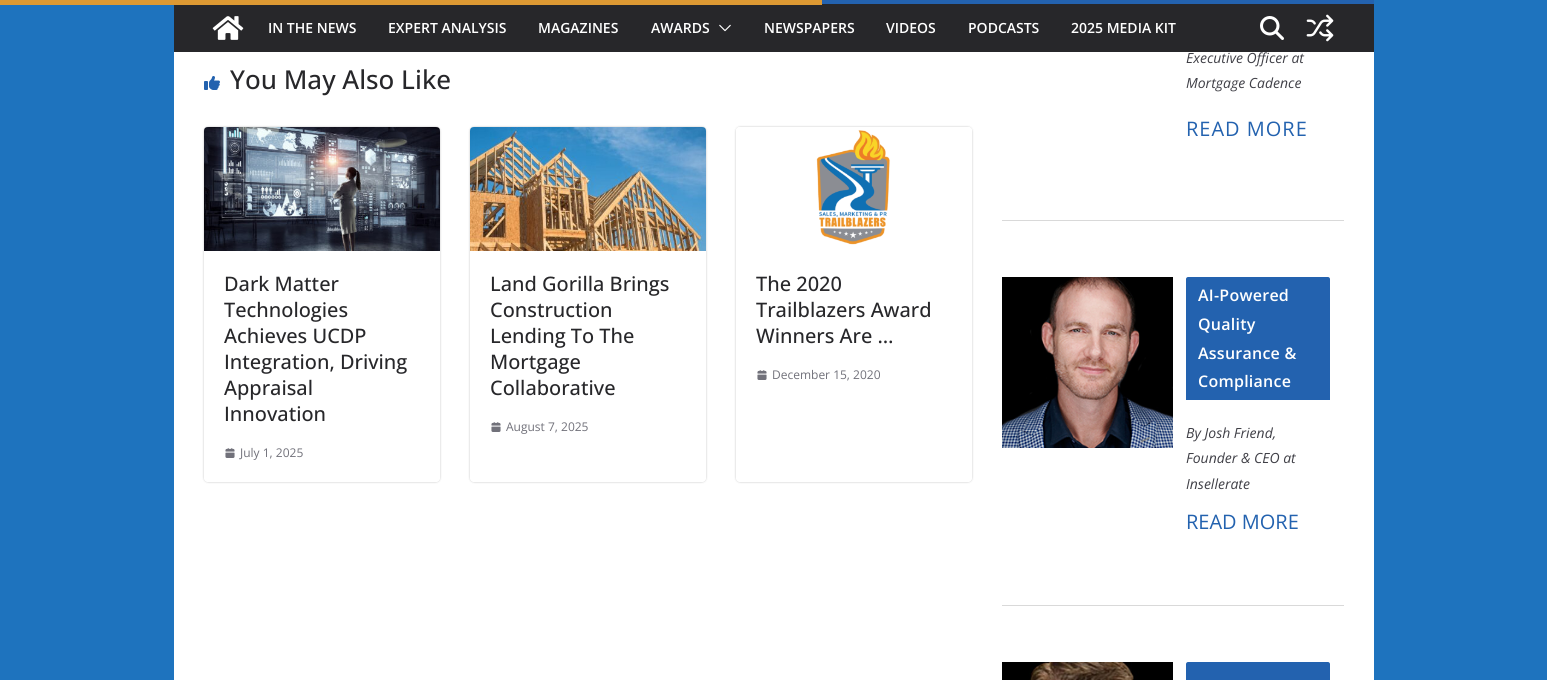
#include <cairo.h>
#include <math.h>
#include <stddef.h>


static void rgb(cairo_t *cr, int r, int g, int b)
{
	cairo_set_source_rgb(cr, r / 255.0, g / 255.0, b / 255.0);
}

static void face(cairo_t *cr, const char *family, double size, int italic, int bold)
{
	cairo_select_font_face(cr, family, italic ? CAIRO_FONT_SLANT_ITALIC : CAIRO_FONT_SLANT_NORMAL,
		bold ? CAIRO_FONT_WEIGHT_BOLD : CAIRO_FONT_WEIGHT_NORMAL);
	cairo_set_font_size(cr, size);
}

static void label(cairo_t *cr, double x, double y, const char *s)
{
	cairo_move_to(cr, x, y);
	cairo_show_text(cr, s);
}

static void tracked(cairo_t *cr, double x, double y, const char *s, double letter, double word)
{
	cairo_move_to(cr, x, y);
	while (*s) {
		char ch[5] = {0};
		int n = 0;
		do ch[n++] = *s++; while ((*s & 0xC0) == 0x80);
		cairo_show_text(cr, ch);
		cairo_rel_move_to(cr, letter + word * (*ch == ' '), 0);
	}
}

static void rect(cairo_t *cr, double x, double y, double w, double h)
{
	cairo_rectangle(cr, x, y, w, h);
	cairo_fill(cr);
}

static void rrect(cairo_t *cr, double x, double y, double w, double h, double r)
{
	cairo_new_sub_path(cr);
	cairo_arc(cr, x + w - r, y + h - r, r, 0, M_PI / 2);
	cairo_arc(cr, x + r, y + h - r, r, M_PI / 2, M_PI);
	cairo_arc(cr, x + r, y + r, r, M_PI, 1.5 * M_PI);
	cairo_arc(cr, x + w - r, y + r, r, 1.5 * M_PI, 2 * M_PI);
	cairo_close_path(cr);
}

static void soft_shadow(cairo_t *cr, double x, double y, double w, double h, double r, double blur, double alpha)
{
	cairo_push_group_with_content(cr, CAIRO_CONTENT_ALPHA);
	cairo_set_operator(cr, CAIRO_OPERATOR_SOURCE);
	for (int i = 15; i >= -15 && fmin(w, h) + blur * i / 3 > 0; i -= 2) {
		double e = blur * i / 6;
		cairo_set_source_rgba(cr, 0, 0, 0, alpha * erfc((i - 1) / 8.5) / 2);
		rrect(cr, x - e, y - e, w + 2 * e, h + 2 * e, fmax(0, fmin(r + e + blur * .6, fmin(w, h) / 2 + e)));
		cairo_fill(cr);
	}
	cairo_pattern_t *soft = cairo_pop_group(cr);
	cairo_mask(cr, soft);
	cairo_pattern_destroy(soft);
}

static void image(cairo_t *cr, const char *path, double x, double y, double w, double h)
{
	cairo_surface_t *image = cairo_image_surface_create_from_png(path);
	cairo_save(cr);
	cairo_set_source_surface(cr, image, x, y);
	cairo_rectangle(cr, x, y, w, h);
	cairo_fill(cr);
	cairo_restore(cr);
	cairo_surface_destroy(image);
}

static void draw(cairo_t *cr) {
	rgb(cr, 30, 115, 190);
	cairo_paint(cr);
	rgb(cr, 39, 39, 42);
	rect(cr, 174, 4, 1200, 48);
	rgb(cr, 221, 153, 51);
	rect(cr, 0, 0, 822, 5);
	rgb(cr, 35, 98, 175);
	rect(cr, 822, 0, 552, 4);
	image(cr, "image0.png", 212, 16, 32, 24);
	face(cr, "Open Sans SemiBold", 14, 0, 0);
	rgb(cr, 255, 255, 255);
	label(cr, 268, 33, "IN THE NEWS");
	label(cr, 388, 33, "EXPERT ANALYSIS");
	label(cr, 538, 33, "MAGAZINES");
	label(cr, 651, 33, "AWARDS");
	image(cr, "image1.png", 719, 24, 12, 8);
	label(cr, 764, 33, "NEWSPAPERS");
	label(cr, 886, 33, "VIDEOS");
	label(cr, 968, 33, "PODCASTS");
	label(cr, 1071, 33, "2025 MEDIA KIT");
	image(cr, "image2.png", 1260, 16, 24, 24);
	image(cr, "image3.png", 1306, 14, 28, 28);
	rect(cr, 174, 52, 1200, 628);
	image(cr, "image4.png", 204, 76, 16, 14);
	face(cr, "Open Sans Medium", 26, 0, 0);
	rgb(cr, 39, 39, 42);
	label(cr, 230, 89, "You May Also Like");
	cairo_save(cr);
	cairo_set_fill_rule(cr, CAIRO_FILL_RULE_EVEN_ODD);
	cairo_new_path(cr);
	cairo_move_to(cr, 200, 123);
	cairo_line_to(cr, 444, 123);
	cairo_line_to(cr, 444, 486);
	cairo_line_to(cr, 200, 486);
	cairo_close_path(cr);
	cairo_move_to(cr, 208, 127);
	cairo_line_to(cr, 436, 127);
	cairo_curve_to(cr, 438, 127, 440, 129, 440, 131);
	cairo_line_to(cr, 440, 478);
	cairo_curve_to(cr, 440, 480, 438, 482, 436, 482);
	cairo_line_to(cr, 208, 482);
	cairo_curve_to(cr, 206, 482, 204, 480, 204, 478);
	cairo_line_to(cr, 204, 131);
	cairo_curve_to(cr, 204, 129, 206, 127, 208, 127);
	cairo_close_path(cr);
	cairo_clip(cr);
	rgb(cr, 0, 0, 0);
	soft_shadow(cr, 204, 127, 236, 355, 4, 1, 0.24);
	cairo_restore(cr);
	image(cr, "image5.png", 204, 127, 236, 124);
	face(cr, "Open Sans Medium", 20, 0, 0);
	label(cr, 224, 291, "Dark Matter");
	label(cr, 224, 317, "Technologies");
	label(cr, 224, 343, "Achieves UCDP");
	label(cr, 224, 369, "Integration, Driving");
	label(cr, 224, 395, "Appraisal");
	label(cr, 224, 421, "Innovation");
	image(cr, "image6.png", 225, 448, 10, 10);
	face(cr, "Open Sans", 12, 0, 0);
	rgb(cr, 113, 113, 122);
	label(cr, 240, 457, "July 1, 2025");
	cairo_save(cr);
	cairo_set_fill_rule(cr, CAIRO_FILL_RULE_EVEN_ODD);
	cairo_new_path(cr);
	cairo_move_to(cr, 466, 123);
	cairo_line_to(cr, 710, 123);
	cairo_line_to(cr, 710, 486);
	cairo_line_to(cr, 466, 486);
	cairo_close_path(cr);
	cairo_move_to(cr, 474, 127);
	cairo_line_to(cr, 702, 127);
	cairo_curve_to(cr, 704, 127, 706, 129, 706, 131);
	cairo_line_to(cr, 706, 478);
	cairo_curve_to(cr, 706, 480, 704, 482, 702, 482);
	cairo_line_to(cr, 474, 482);
	cairo_curve_to(cr, 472, 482, 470, 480, 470, 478);
	cairo_line_to(cr, 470, 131);
	cairo_curve_to(cr, 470, 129, 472, 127, 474, 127);
	cairo_close_path(cr);
	cairo_clip(cr);
	rgb(cr, 0, 0, 0);
	soft_shadow(cr, 470, 127, 236, 355, 4, 1, 0.24);
	cairo_restore(cr);
	image(cr, "image7.png", 470, 127, 236, 124);
	face(cr, "Open Sans Medium", 20, 0, 0);
	rgb(cr, 39, 39, 42);
	label(cr, 490, 291, "Land Gorilla Brings");
	label(cr, 490, 317, "Construction");
	label(cr, 490, 343, "Lending To The");
	label(cr, 490, 369, "Mortgage");
	label(cr, 490, 395, "Collaborative");
	image(cr, "image6.png", 491, 422, 10, 10);
	face(cr, "Open Sans", 12, 0, 0);
	rgb(cr, 113, 113, 122);
	label(cr, 506, 431, "August 7, 2025");
	cairo_save(cr);
	cairo_set_fill_rule(cr, CAIRO_FILL_RULE_EVEN_ODD);
	cairo_new_path(cr);
	cairo_move_to(cr, 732, 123);
	cairo_line_to(cr, 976, 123);
	cairo_line_to(cr, 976, 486);
	cairo_line_to(cr, 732, 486);
	cairo_close_path(cr);
	cairo_move_to(cr, 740, 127);
	cairo_line_to(cr, 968, 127);
	cairo_curve_to(cr, 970, 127, 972, 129, 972, 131);
	cairo_line_to(cr, 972, 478);
	cairo_curve_to(cr, 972, 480, 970, 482, 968, 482);
	cairo_line_to(cr, 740, 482);
	cairo_curve_to(cr, 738, 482, 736, 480, 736, 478);
	cairo_line_to(cr, 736, 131);
	cairo_curve_to(cr, 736, 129, 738, 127, 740, 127);
	cairo_close_path(cr);
	cairo_clip(cr);
	rgb(cr, 0, 0, 0);
	soft_shadow(cr, 736, 127, 236, 355, 4, 1, 0.24);
	cairo_restore(cr);
	image(cr, "image8.png", 736, 127, 236, 118);
	face(cr, "Open Sans Medium", 20, 0, 0);
	rgb(cr, 39, 39, 42);
	label(cr, 756, 291, "The 2020");
	label(cr, 756, 317, "Trailblazers Award");
	label(cr, 756, 343, "Winners Are …");
	image(cr, "image6.png", 757, 370, 10, 10);
	face(cr, "Open Sans", 12, 0, 0);
	rgb(cr, 113, 113, 122);
	label(cr, 772, 379, "December 15, 2020");
	face(cr, "Open Sans", 14, 1, 0);
	rgb(cr, 63, 63, 70);
	label(cr, 1186, 63, "Executive Officer at");
	label(cr, 1186, 88, "Mortgage Cadence");
	face(cr, "Open Sans", 20, 0, 0);
	rgb(cr, 35, 98, 175);
	tracked(cr, 1186, 136, "READ MORE", 1, 0);
	rgb(cr, 217, 217, 217);
	rect(cr, 1002, 220, 342, 1);
	image(cr, "image9.png", 1002, 277, 171, 171);
	rgb(cr, 35, 98, 175);
	rect(cr, 1186, 398, 144, 2);
	cairo_new_path(cr);
	cairo_move_to(cr, 1188, 277);
	cairo_line_to(cr, 1328, 277);
	cairo_curve_to(cr, 1329, 277, 1330, 278, 1330, 279);
	cairo_line_to(cr, 1330, 398);
	cairo_line_to(cr, 1186, 398);
	cairo_line_to(cr, 1186, 279);
	cairo_curve_to(cr, 1186, 278, 1187, 277, 1188, 277);
	cairo_close_path(cr);
	cairo_fill(cr);
	face(cr, "Open Sans SemiBold", 16, 0, 0);
	rgb(cr, 255, 255, 255);
	tracked(cr, 1198, 301, "AI-Powered", 0.25, 0);
	tracked(cr, 1198, 330, "Quality", 0.25, 0);
	tracked(cr, 1198, 359, "Assurance &", 0.25, 0);
	tracked(cr, 1198, 387, "Compliance", 0.25, 0);
	face(cr, "Open Sans", 14, 1, 0);
	rgb(cr, 63, 63, 70);
	label(cr, 1186, 438, "By Josh Friend,");
	label(cr, 1186, 463, "Founder & CEO at");
	label(cr, 1186, 489, "Insellerate");
	face(cr, "Open Sans", 20, 0, 0);
	rgb(cr, 35, 98, 175);
	label(cr, 1186, 529, "READ MORE");
	rgb(cr, 217, 217, 217);
	rect(cr, 1002, 605, 342, 1);
	image(cr, "image10.png", 1002, 662, 171, 18);
	rgb(cr, 35, 98, 175);
	cairo_new_path(cr);
	cairo_move_to(cr, 1188, 662);
	cairo_line_to(cr, 1328, 662);
	cairo_curve_to(cr, 1329, 662, 1330, 663, 1330, 664);
	cairo_line_to(cr, 1330, 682);
	cairo_line_to(cr, 1186, 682);
	cairo_line_to(cr, 1186, 664);
	cairo_curve_to(cr, 1186, 663, 1187, 662, 1188, 662);
	cairo_close_path(cr);
	cairo_fill(cr);
}

int main(void) {
	cairo_surface_t *surface = cairo_image_surface_create(CAIRO_FORMAT_RGB24, 1547, 680);
	cairo_t *cr = cairo_create(surface);
	cairo_font_options_t *options = cairo_font_options_create();
	cairo_font_options_set_hint_metrics(options, CAIRO_HINT_METRICS_OFF);
	cairo_font_options_set_hint_style(options, CAIRO_HINT_STYLE_NONE);
	cairo_set_font_options(cr, options);
	cairo_set_miter_limit(cr, 4);
	draw(cr);
	cairo_surface_write_to_png(surface, "render.png");
	cairo_font_options_destroy(options);
	cairo_destroy(cr);
	cairo_surface_destroy(surface);
	return 0;
}
